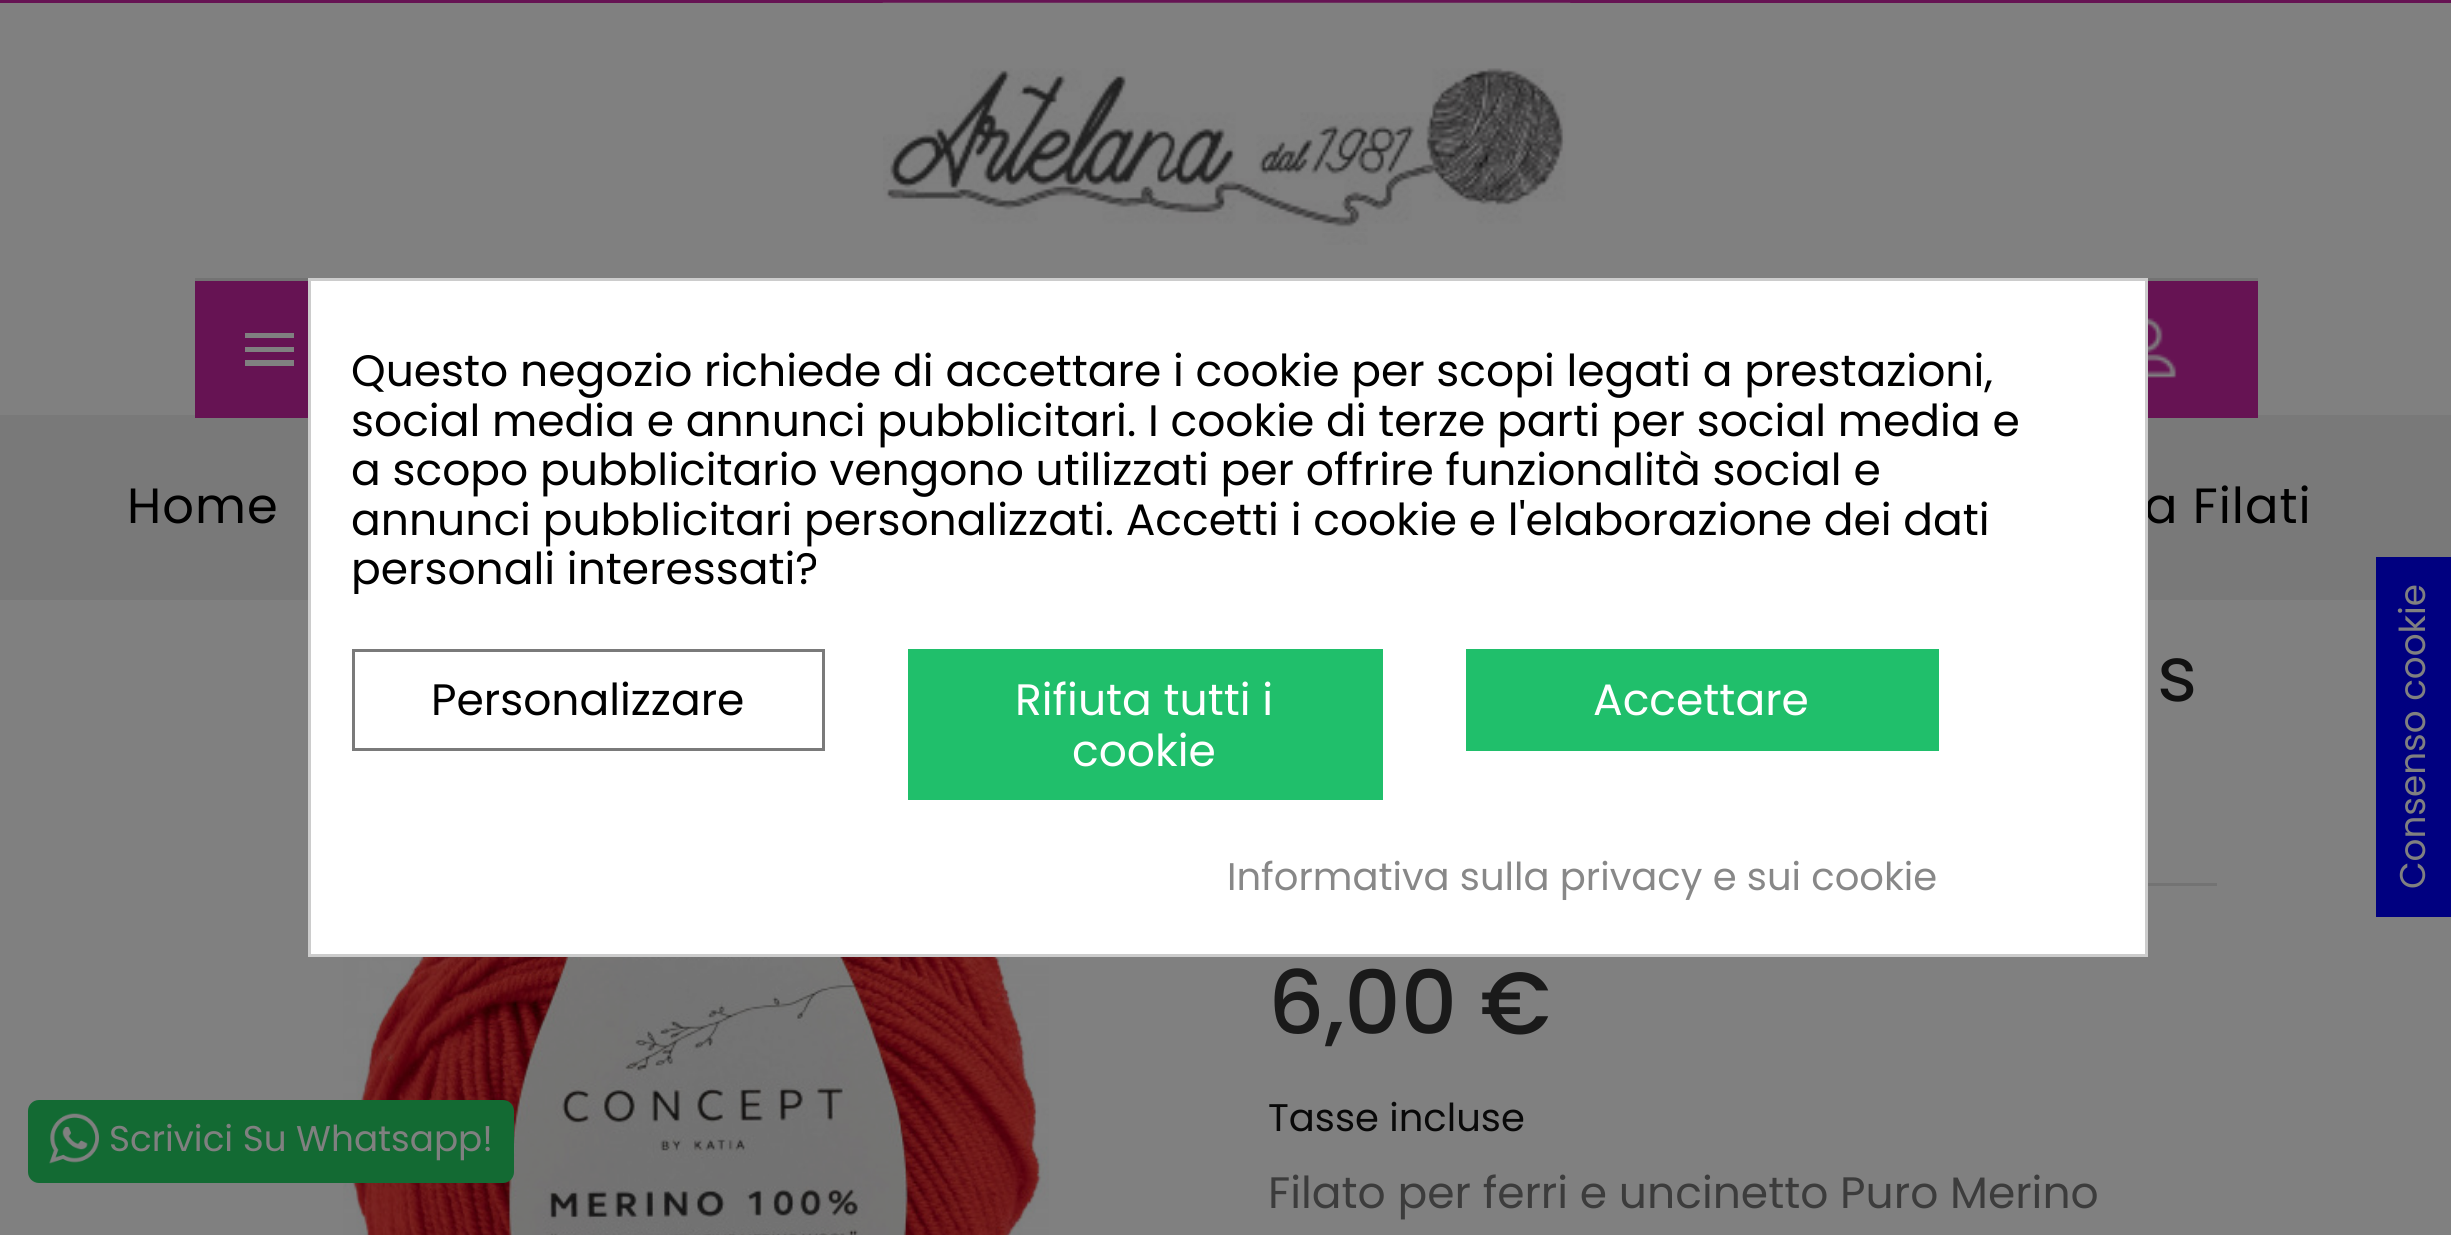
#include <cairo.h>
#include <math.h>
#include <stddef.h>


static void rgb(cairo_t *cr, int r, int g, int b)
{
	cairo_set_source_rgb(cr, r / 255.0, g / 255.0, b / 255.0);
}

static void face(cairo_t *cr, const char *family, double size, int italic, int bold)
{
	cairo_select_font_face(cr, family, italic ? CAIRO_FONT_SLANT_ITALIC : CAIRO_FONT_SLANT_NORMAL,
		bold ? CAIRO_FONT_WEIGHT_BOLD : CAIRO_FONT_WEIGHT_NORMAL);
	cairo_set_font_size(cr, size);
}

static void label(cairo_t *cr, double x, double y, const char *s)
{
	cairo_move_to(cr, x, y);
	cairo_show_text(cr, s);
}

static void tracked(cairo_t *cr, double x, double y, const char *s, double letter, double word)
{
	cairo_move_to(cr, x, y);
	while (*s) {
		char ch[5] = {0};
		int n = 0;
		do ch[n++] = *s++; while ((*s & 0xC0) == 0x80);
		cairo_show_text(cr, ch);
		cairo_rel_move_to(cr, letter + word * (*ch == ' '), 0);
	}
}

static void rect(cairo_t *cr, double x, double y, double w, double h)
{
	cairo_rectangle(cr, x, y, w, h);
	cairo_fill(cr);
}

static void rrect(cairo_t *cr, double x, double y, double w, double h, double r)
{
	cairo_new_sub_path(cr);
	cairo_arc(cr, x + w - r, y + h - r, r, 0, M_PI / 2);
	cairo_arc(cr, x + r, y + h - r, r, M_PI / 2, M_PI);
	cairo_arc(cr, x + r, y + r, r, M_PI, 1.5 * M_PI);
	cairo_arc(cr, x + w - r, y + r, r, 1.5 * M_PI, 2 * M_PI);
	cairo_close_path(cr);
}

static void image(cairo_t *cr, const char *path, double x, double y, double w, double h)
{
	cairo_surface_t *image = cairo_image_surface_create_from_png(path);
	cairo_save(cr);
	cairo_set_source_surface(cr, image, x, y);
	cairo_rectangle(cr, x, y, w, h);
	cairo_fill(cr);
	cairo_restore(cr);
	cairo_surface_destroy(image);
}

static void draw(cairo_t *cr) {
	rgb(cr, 128, 128, 128);
	cairo_paint(cr);
	rgb(cr, 121, 121, 121);
	rect(cr, 0, 415, 2451, 185);
	rgb(cr, 102, 19, 83);
	rect(cr, 195, 281, 2063, 137);
	rgb(cr, 115, 115, 115);
	rect(cr, 195, 278, 2063, 3);
	face(cr, "Poppins", 49.5, 0, 0);
	rgb(cr, 0, 0, 0);
	tracked(cr, 2144, 523, "a Filati", 1, 0);
	rgb(cr, 255, 255, 255);
	cairo_rectangle(cr, 309.5, 279.5, 1837, 676);
	cairo_fill_preserve(cr);
	rgb(cr, 204, 204, 204);
	cairo_set_line_width(cr, 3);
	cairo_stroke(cr);
	face(cr, "Poppins", 44, 0, 0);
	rgb(cr, 0, 0, 0);
	label(cr, 351, 386, "Questo negozio richiede di accettare i cookie per scopi legati a prestazioni,");
	label(cr, 351, 436, "social media e annunci pubblicitari. I cookie di terze parti per social media e");
	label(cr, 351, 485, "a scopo pubblicitario vengono utilizzati per offrire funzionalità social e");
	label(cr, 351, 535, "annunci pubblicitari personalizzati. Accetti i cookie e l'elaborazione dei dati");
	cairo_save(cr);
	cairo_rectangle(cr, 352, 347, 1669, 247);
	cairo_clip(cr);
	label(cr, 351, 584, "personali interessati?");
	cairo_restore(cr);
	cairo_rectangle(cr, 353.5, 650.5, 470, 99);
	rgb(cr, 122, 122, 122);
	cairo_stroke(cr);
	rgb(cr, 0, 0, 0);
	label(cr, 431, 715, "Personalizzare");
	rgb(cr, 32, 191, 107);
	rect(cr, 908, 649, 475, 151);
	rgb(cr, 255, 255, 255);
	label(cr, 1015, 715, "Rifiuta tutti i");
	label(cr, 1072, 766, "cookie");
	rgb(cr, 32, 191, 107);
	rect(cr, 1466, 649, 473, 102);
	rgb(cr, 255, 255, 255);
	label(cr, 1593, 715, "Accettare");
	face(cr, "Poppins", 38.5, 0, 0);
	rgb(cr, 136, 136, 136);
	label(cr, 1227, 890, "Informativa sulla privacy e sui cookie");
	rgb(cr, 102, 19, 83);
	rect(cr, 0, 0, 2451, 3);
	image(cr, "image0.png", 882, 2, 689, 243);
	rgb(cr, 128, 128, 128);
	cairo_new_path(cr);
	cairo_move_to(cr, 245, 333);
	cairo_line_to(cr, 294, 333);
	cairo_line_to(cr, 294, 338);
	cairo_line_to(cr, 245, 338);
	cairo_close_path(cr);
	cairo_move_to(cr, 245, 352);
	cairo_line_to(cr, 245, 347);
	cairo_line_to(cr, 294, 347);
	cairo_line_to(cr, 294, 352);
	cairo_close_path(cr);
	cairo_move_to(cr, 245, 366);
	cairo_line_to(cr, 245, 360);
	cairo_line_to(cr, 294, 360);
	cairo_line_to(cr, 294, 366);
	cairo_close_path(cr);
	cairo_fill(cr);
	image(cr, "image1.png", 2148, 318, 29, 60);
	face(cr, "Poppins", 49.5, 0, 0);
	rgb(cr, 0, 0, 0);
	tracked(cr, 127, 523, "Home", 1, 0);
	image(cr, "image2.png", 343, 957, 706, 278);
	rgb(cr, 115, 115, 115);
	rect(cr, 2148, 883, 69, 3);
	face(cr, "Poppins", 77, 0, 0);
	rgb(cr, 17, 17, 17);
	label(cr, 2157, 701, "s");
	face(cr, "Poppins Medium", 88, 0, 0);
	rgb(cr, 26, 26, 26);
	label(cr, 1268, 1034, "6,00 €");
	face(cr, "Poppins", 38.5, 0, 0);
	rgb(cr, 9, 9, 9);
	label(cr, 1268, 1131, "Tasse incluse");
	face(cr, "Poppins", 44, 0, 0);
	rgb(cr, 60, 60, 60);
	label(cr, 1268, 1208, "Filato per ferri e uncinetto Puro Merino");
	rgb(cr, 0, 0, 128);
	rect(cr, 2376, 557, 75, 360);
	face(cr, "Poppins", 35.75, 0, 0);
	rgb(cr, 128, 128, 128);
	cairo_save(cr);
	cairo_translate(cr, 2425, 889);
	cairo_rotate(cr, -90 * M_PI / 180);
	label(cr, 0, 0, "Consenso cookie");
	cairo_restore(cr);
	rgb(cr, 19, 106, 51);
	rrect(cr, 28, 1100, 486, 83, 11);
	cairo_fill(cr);
	image(cr, "image3.png", 49, 1113, 50, 51);
	rgb(cr, 128, 128, 128);
	label(cr, 109, 1151, "Scrivici Su Whatsapp!");
}

int main(void) {
	cairo_surface_t *surface = cairo_image_surface_create(CAIRO_FORMAT_RGB24, 2451, 1235);
	cairo_t *cr = cairo_create(surface);
	cairo_font_options_t *options = cairo_font_options_create();
	cairo_font_options_set_hint_metrics(options, CAIRO_HINT_METRICS_OFF);
	cairo_font_options_set_hint_style(options, CAIRO_HINT_STYLE_NONE);
	cairo_set_font_options(cr, options);
	cairo_set_miter_limit(cr, 4);
	draw(cr);
	cairo_surface_write_to_png(surface, "render.png");
	cairo_font_options_destroy(options);
	cairo_destroy(cr);
	cairo_surface_destroy(surface);
	return 0;
}
